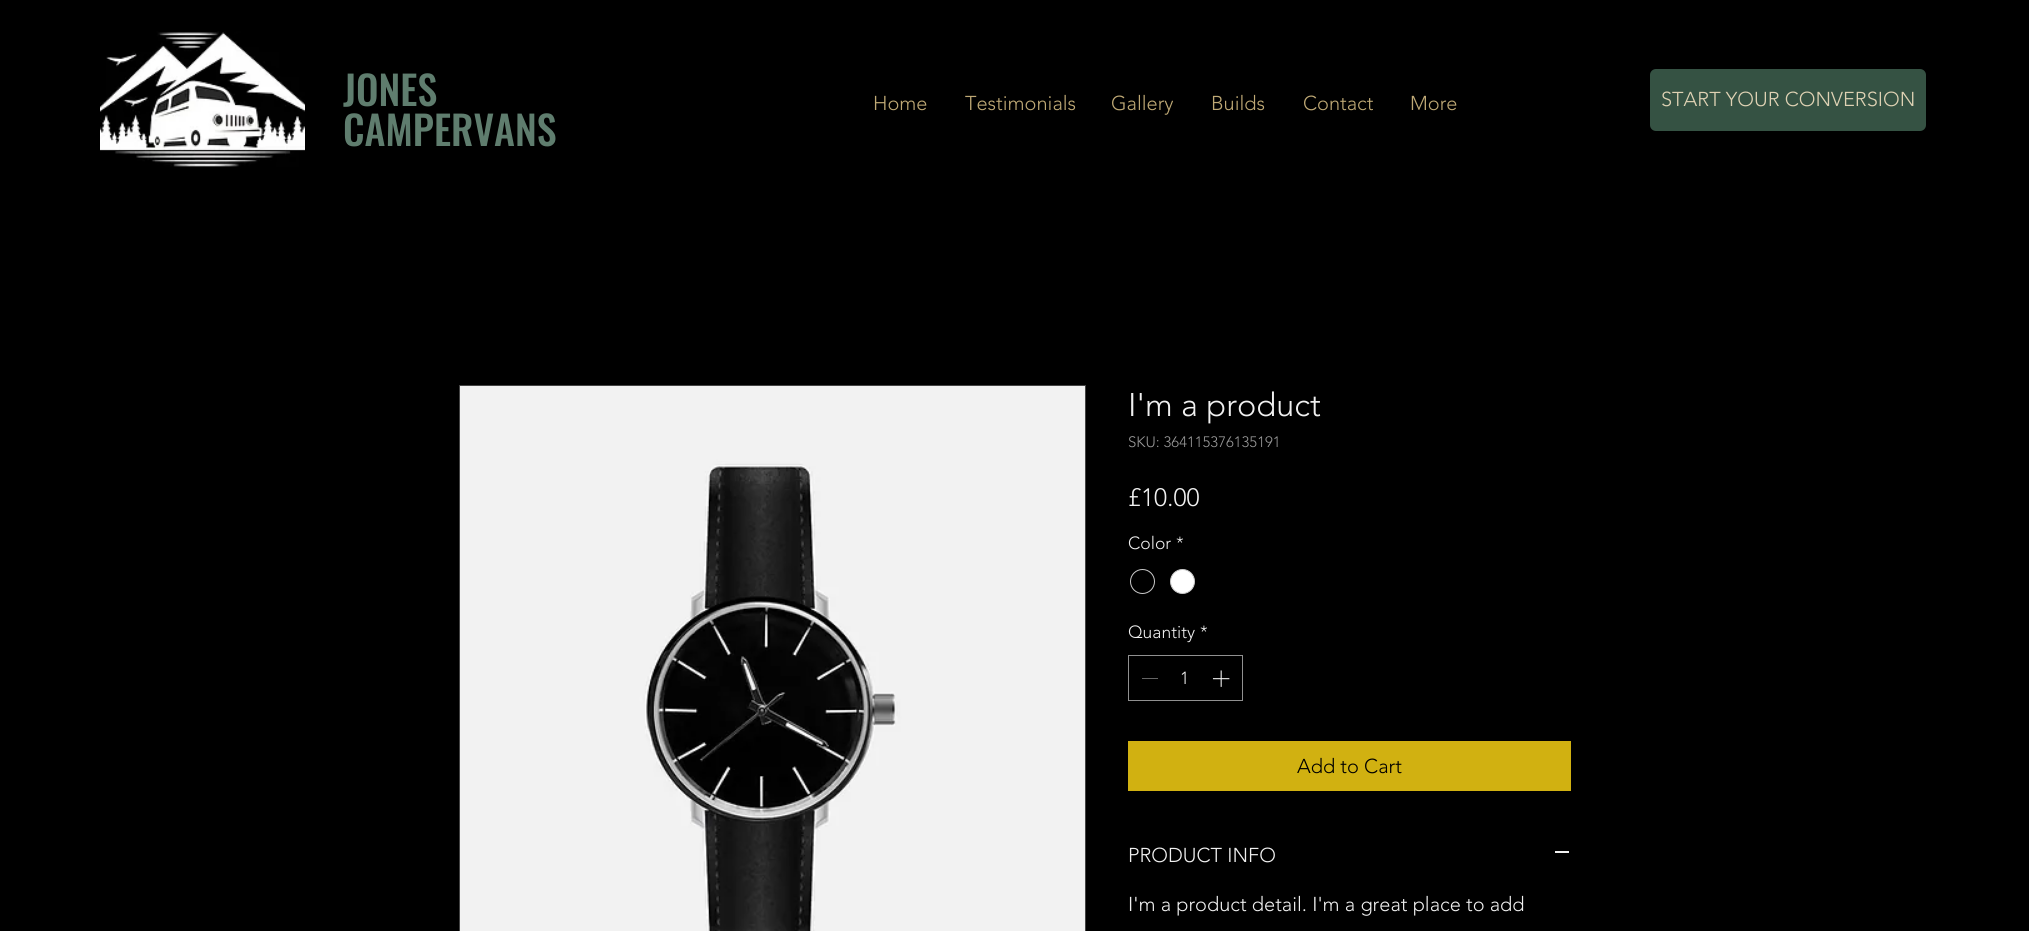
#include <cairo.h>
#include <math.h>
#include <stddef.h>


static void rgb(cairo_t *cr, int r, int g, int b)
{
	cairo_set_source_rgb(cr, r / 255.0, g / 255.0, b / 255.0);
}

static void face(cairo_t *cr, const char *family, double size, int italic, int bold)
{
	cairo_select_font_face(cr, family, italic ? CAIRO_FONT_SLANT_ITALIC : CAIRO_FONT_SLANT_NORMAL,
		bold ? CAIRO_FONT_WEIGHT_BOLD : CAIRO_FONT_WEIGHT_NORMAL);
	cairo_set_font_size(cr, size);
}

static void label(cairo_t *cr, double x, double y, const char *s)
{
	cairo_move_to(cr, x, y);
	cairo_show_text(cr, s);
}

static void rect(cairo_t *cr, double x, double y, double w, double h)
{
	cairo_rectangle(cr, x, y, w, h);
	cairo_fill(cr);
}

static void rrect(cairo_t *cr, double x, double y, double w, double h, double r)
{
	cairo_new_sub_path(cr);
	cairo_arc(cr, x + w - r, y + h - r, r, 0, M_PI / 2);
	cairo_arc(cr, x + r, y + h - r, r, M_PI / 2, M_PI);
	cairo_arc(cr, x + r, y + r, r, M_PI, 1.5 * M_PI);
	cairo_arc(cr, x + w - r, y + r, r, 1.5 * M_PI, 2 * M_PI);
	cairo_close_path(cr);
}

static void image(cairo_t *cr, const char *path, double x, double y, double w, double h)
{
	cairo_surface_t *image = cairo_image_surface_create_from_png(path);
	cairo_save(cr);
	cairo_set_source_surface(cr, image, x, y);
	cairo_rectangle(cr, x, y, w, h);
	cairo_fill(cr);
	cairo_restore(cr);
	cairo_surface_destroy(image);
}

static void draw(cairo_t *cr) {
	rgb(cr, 0, 0, 0);
	cairo_paint(cr);
	image(cr, "image0.png", 100, 31, 205, 136);
	face(cr, "Oswald Medium", 40, 0, 0);
	rgb(cr, 95, 125, 110);
	label(cr, 343, 106, "JONES");
	label(cr, 343, 146, "CAMPERVANS");
	face(cr, "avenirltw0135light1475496 Light", 20, 0, 0);
	rgb(cr, 191, 169, 117);
	label(cr, 873, 110, "Home");
	label(cr, 965, 110, "Testimonials");
	label(cr, 1111, 110, "Gallery");
	label(cr, 1211, 110, "Builds");
	label(cr, 1303, 110, "Contact");
	label(cr, 1410, 110, "More");
	rgb(cr, 53, 82, 67);
	rrect(cr, 1650, 69, 276, 62, 6);
	cairo_fill(cr);
	rgb(cr, 223, 210, 180);
	label(cr, 1661, 106, "START YOUR CONVERSION");
	cairo_rectangle(cr, 459.5, 385.5, 626, 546);
	rgb(cr, 68, 68, 68);
	cairo_set_line_width(cr, 1);
	cairo_stroke(cr);
	image(cr, "image1.png", 460, 386, 625, 545);
	face(cr, "avenirltw0135light1475496 Light", 32.5, 0, 0);
	rgb(cr, 240, 240, 240);
	label(cr, 1128, 416, "I'm a product");
	face(cr, "avenirltw0135light1475496 Light", 15, 0, 0);
	rgb(cr, 153, 153, 153);
	label(cr, 1128, 447, "SKU: 364115376135191");
	face(cr, "avenirltw0135light1475496 Light", 25, 0, 0);
	rgb(cr, 240, 240, 240);
	label(cr, 1128, 506, "£10.00");
	face(cr, "avenirltw0135light1475496 Light", 17.5, 0, 0);
	label(cr, 1128, 549, "Color");
	label(cr, 1176, 549, "*");
	cairo_new_path(cr);
	cairo_arc(cr, 1142.5, 581.5, 12, 0, 2 * M_PI);
	rgb(cr, 201, 201, 201);
	cairo_stroke(cr);
	rgb(cr, 255, 255, 255);
	cairo_arc(cr, 1182.5, 581.5, 12, 0, 2 * M_PI);
	cairo_fill_preserve(cr);
	rgb(cr, 201, 201, 201);
	cairo_stroke(cr);
	rgb(cr, 240, 240, 240);
	label(cr, 1128, 638, "Quantity");
	label(cr, 1200, 638, "*");
	cairo_rectangle(cr, 1128.5, 655.5, 114, 45);
	rgb(cr, 144, 144, 144);
	cairo_stroke(cr);
	rgb(cr, 100, 100, 100);
	rect(cr, 1142, 678, 16, 1);
	rgb(cr, 240, 240, 240);
	label(cr, 1180, 684, "1");
	image(cr, "image2.png", 1212, 670, 18, 17);
	rgb(cr, 209, 177, 17);
	rect(cr, 1128, 741, 443, 50);
	face(cr, "avenirltw0135light1475496 Light", 20, 0, 0);
	rgb(cr, 0, 0, 0);
	label(cr, 1297, 773, "Add to Cart");
	rgb(cr, 240, 240, 240);
	label(cr, 1128, 862, "PRODUCT INFO");
	rect(cr, 1555, 851, 14, 2);
	label(cr, 1128, 911, "I'm a product detail. I'm a great place to add");
}

int main(void) {
	cairo_surface_t *surface = cairo_image_surface_create(CAIRO_FORMAT_RGB24, 2029, 931);
	cairo_t *cr = cairo_create(surface);
	cairo_font_options_t *options = cairo_font_options_create();
	cairo_font_options_set_hint_metrics(options, CAIRO_HINT_METRICS_OFF);
	cairo_font_options_set_hint_style(options, CAIRO_HINT_STYLE_NONE);
	cairo_set_font_options(cr, options);
	cairo_set_miter_limit(cr, 4);
	draw(cr);
	cairo_surface_write_to_png(surface, "render.png");
	cairo_font_options_destroy(options);
	cairo_destroy(cr);
	cairo_surface_destroy(surface);
	return 0;
}
